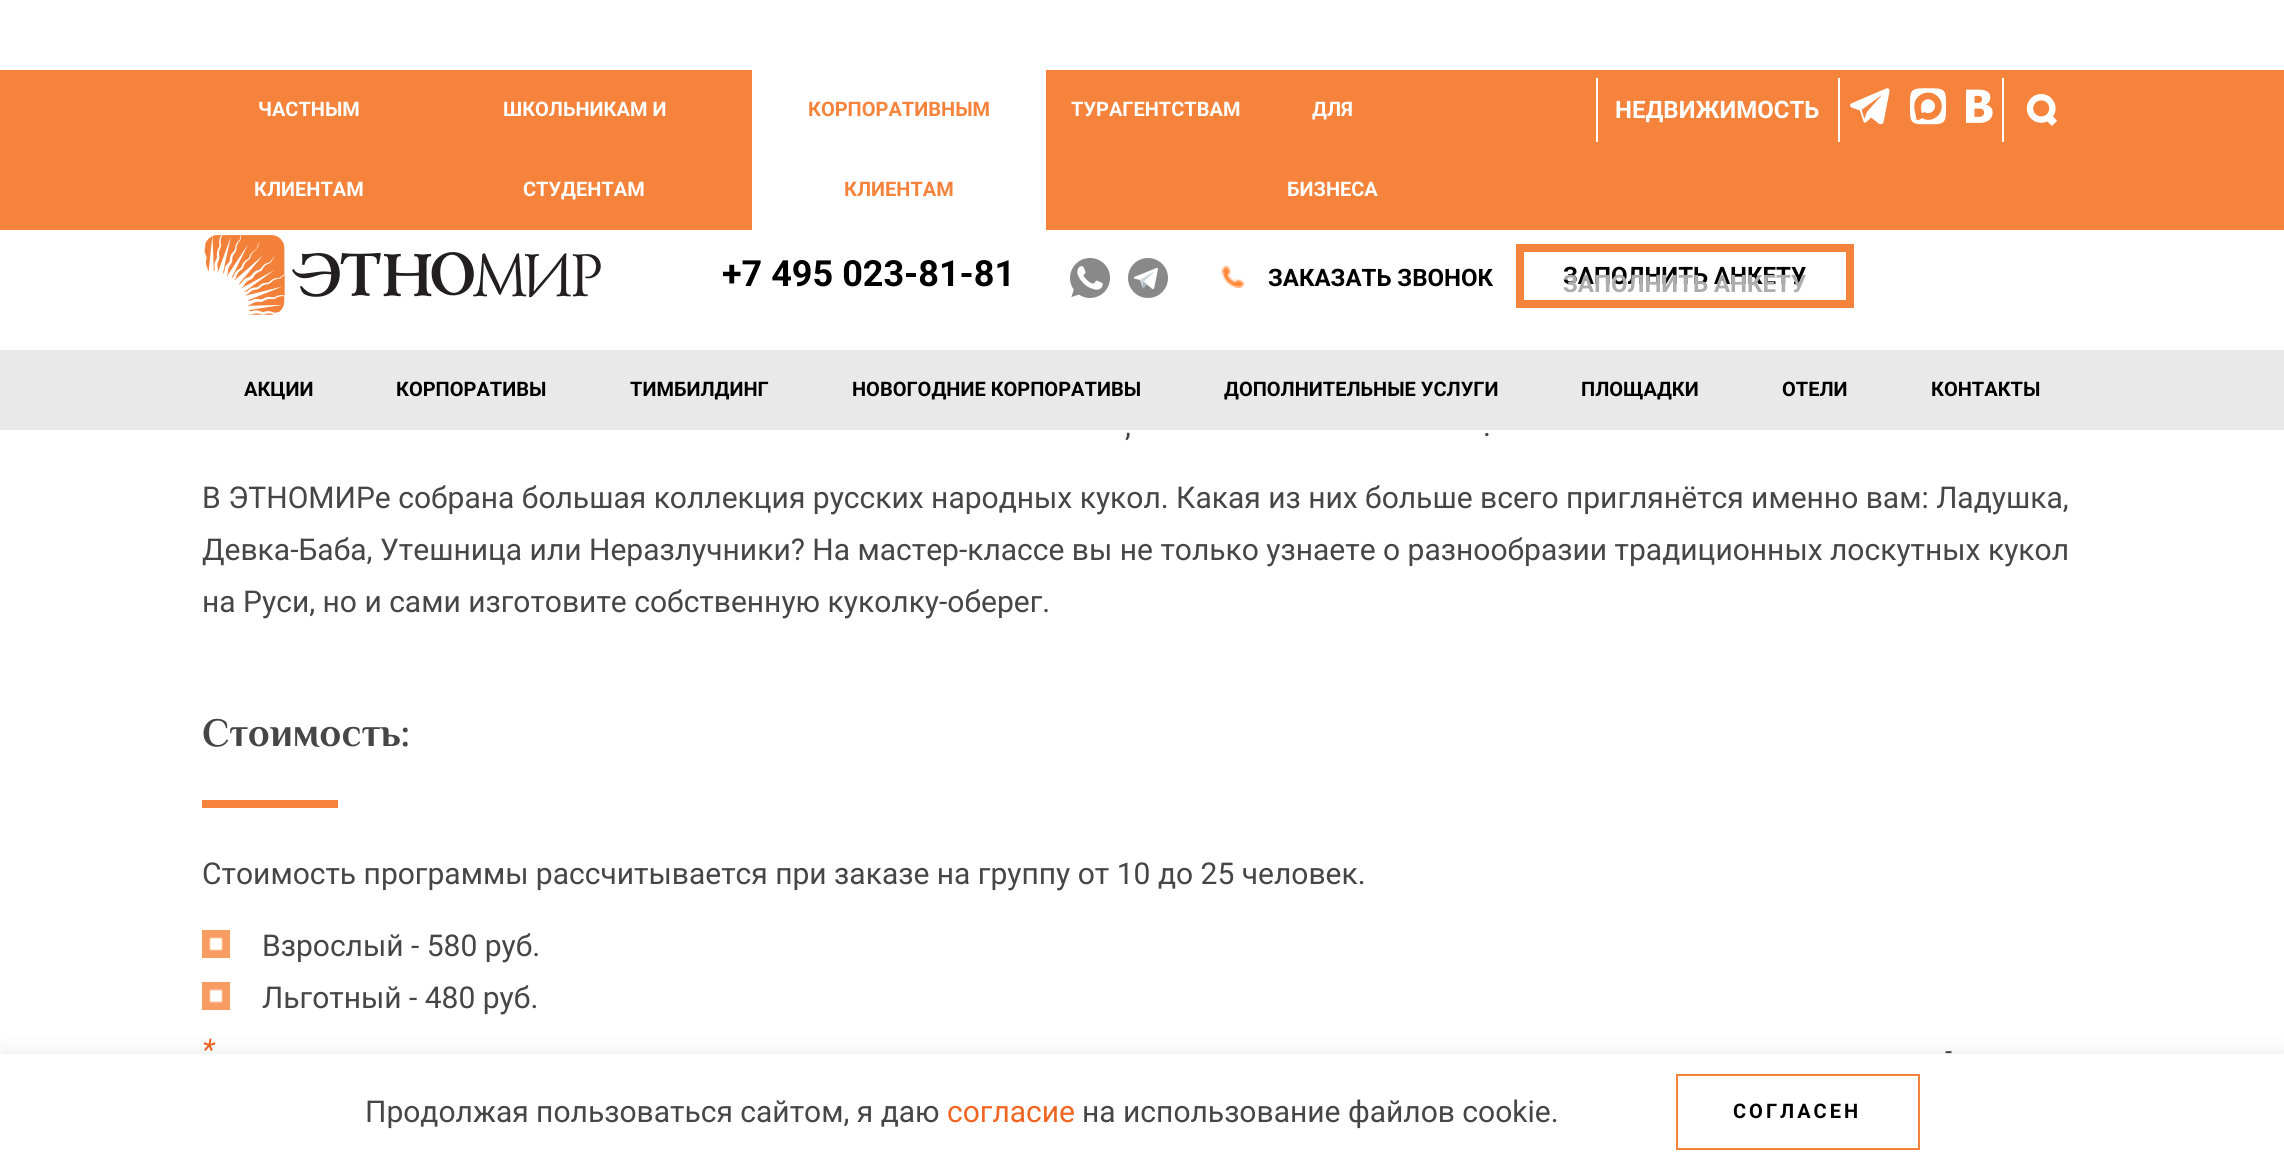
#include <cairo.h>
#include <math.h>
#include <stddef.h>


static void rgb(cairo_t *cr, int r, int g, int b)
{
	cairo_set_source_rgb(cr, r / 255.0, g / 255.0, b / 255.0);
}

static void face(cairo_t *cr, const char *family, double size, int italic, int bold)
{
	cairo_select_font_face(cr, family, italic ? CAIRO_FONT_SLANT_ITALIC : CAIRO_FONT_SLANT_NORMAL,
		bold ? CAIRO_FONT_WEIGHT_BOLD : CAIRO_FONT_WEIGHT_NORMAL);
	cairo_set_font_size(cr, size);
}

static void label(cairo_t *cr, double x, double y, const char *s)
{
	cairo_move_to(cr, x, y);
	cairo_show_text(cr, s);
}

static void tracked(cairo_t *cr, double x, double y, const char *s, double letter, double word)
{
	cairo_move_to(cr, x, y);
	while (*s) {
		char ch[5] = {0};
		int n = 0;
		do ch[n++] = *s++; while ((*s & 0xC0) == 0x80);
		cairo_show_text(cr, ch);
		cairo_rel_move_to(cr, letter + word * (*ch == ' '), 0);
	}
}

static void rect(cairo_t *cr, double x, double y, double w, double h)
{
	cairo_rectangle(cr, x, y, w, h);
	cairo_fill(cr);
}

static void rrect(cairo_t *cr, double x, double y, double w, double h, double r)
{
	cairo_new_sub_path(cr);
	cairo_arc(cr, x + w - r, y + h - r, r, 0, M_PI / 2);
	cairo_arc(cr, x + r, y + h - r, r, M_PI / 2, M_PI);
	cairo_arc(cr, x + r, y + r, r, M_PI, 1.5 * M_PI);
	cairo_arc(cr, x + w - r, y + r, r, 1.5 * M_PI, 2 * M_PI);
	cairo_close_path(cr);
}

static void soft_shadow(cairo_t *cr, double x, double y, double w, double h, double r, double blur, double alpha)
{
	cairo_push_group_with_content(cr, CAIRO_CONTENT_ALPHA);
	cairo_set_operator(cr, CAIRO_OPERATOR_SOURCE);
	for (int i = 15; i >= -15 && fmin(w, h) + blur * i / 3 > 0; i -= 2) {
		double e = blur * i / 6;
		cairo_set_source_rgba(cr, 0, 0, 0, alpha * erfc((i - 1) / 8.5) / 2);
		rrect(cr, x - e, y - e, w + 2 * e, h + 2 * e, fmax(0, fmin(r + e + blur * .6, fmin(w, h) / 2 + e)));
		cairo_fill(cr);
	}
	cairo_pattern_t *soft = cairo_pop_group(cr);
	cairo_mask(cr, soft);
	cairo_pattern_destroy(soft);
}

static void image(cairo_t *cr, const char *path, double x, double y, double w, double h)
{
	cairo_surface_t *image = cairo_image_surface_create_from_png(path);
	cairo_save(cr);
	cairo_set_source_surface(cr, image, x, y);
	cairo_rectangle(cr, x, y, w, h);
	cairo_fill(cr);
	cairo_restore(cr);
	cairo_surface_destroy(image);
}

static void draw(cairo_t *cr) {
	rgb(cr, 255, 255, 255);
	cairo_paint(cr);
	rgb(cr, 245, 131, 59);
	rect(cr, 0, 70, 2284, 160);
	face(cr, "Roboto", 20, 0, 1);
	rgb(cr, 255, 255, 255);
	label(cr, 258, 116, "ЧАСТНЫМ");
	label(cr, 254, 196, "КЛИЕНТАМ");
	label(cr, 503, 116, "ШКОЛЬНИКАМ И");
	label(cr, 523, 196, "СТУДЕНТАМ");
	rect(cr, 752, 70, 294, 160);
	rgb(cr, 245, 131, 59);
	label(cr, 808, 116, "КОРПОРАТИВНЫМ");
	label(cr, 844, 196, "КЛИЕНТАМ");
	rgb(cr, 255, 255, 255);
	label(cr, 1071, 116, "ТУРАГЕНТСТВАМ");
	label(cr, 1312, 116, "ДЛЯ");
	label(cr, 1287, 196, "БИЗНЕСА");
	rect(cr, 1596, 78, 2, 64);
	face(cr, "Roboto", 24, 0, 1);
	label(cr, 1615, 118, "НЕДВИЖИМОСТЬ");
	rect(cr, 1838, 78, 2, 64);
	image(cr, "image0.png", 1850, 88, 40, 37);
	image(cr, "image1.png", 1910, 88, 36, 37);
	image(cr, "image2.png", 1966, 89, 27, 34);
	rect(cr, 2002, 78, 2, 64);
	image(cr, "image3.png", 2026, 94, 32, 32);
	image(cr, "image4.png", 204, 235, 397, 80);
	face(cr, "Roboto", 36, 0, 1);
	rgb(cr, 0, 0, 0);
	label(cr, 722, 286, "+7 495 023-81-81");
	image(cr, "image5.png", 1070, 258, 40, 40);
	image(cr, "image6.png", 1128, 258, 40, 40);
	image(cr, "image7.png", 1221, 266, 24, 22);
	face(cr, "Roboto", 24, 0, 1);
	label(cr, 1268, 286, "ЗАКАЗАТЬ ЗВОНОК");
	cairo_rectangle(cr, 1520, 248, 330, 56);
	rgb(cr, 245, 131, 59);
	cairo_set_line_width(cr, 8);
	cairo_stroke(cr);
	rgb(cr, 0, 0, 0);
	label(cr, 1563, 284, "ЗАПОЛНИТЬ АНКЕТУ");
	rgb(cr, 173, 173, 173);
	label(cr, 1563, 292, "ЗАПОЛНИТЬ АНКЕТУ");
	rgb(cr, 234, 233, 233);
	rect(cr, 0, 350, 2284, 80);
	face(cr, "Roboto", 20, 0, 1);
	rgb(cr, 0, 0, 0);
	label(cr, 244, 396, "АКЦИИ");
	label(cr, 396, 396, "КОРПОРАТИВЫ");
	label(cr, 630, 396, "ТИМБИЛДИНГ");
	label(cr, 852, 396, "НОВОГОДНИЕ КОРПОРАТИВЫ");
	label(cr, 1224, 396, "ДОПОЛНИТЕЛЬНЫЕ УСЛУГИ");
	label(cr, 1581, 396, "ПЛОЩАДКИ");
	label(cr, 1782, 396, "ОТЕЛИ");
	label(cr, 1931, 396, "КОНТАКТЫ");
	face(cr, "Roboto", 30, 0, 0);
	rgb(cr, 70, 70, 70);
	label(cr, 1125, 436, ",");
	label(cr, 1483, 436, ".");
	label(cr, 202, 508, "В ЭТНОМИРе собрана большая коллекция русских народных кукол. Какая из них больше всего приглянётся именно вам: Ладушка,");
	label(cr, 202, 560, "Девка-Баба, Утешница или Неразлучники? На мастер-классе вы не только узнаете о разнообразии традиционных лоскутных кукол");
	label(cr, 202, 612, "на Руси, но и сами изготовите собственную куколку-оберег.");
	face(cr, "Philosopher", 40, 0, 1);
	label(cr, 202, 746, "Стоимость:");
	rgb(cr, 245, 131, 59);
	rect(cr, 202, 800, 136, 8);
	face(cr, "Roboto", 30, 0, 0);
	rgb(cr, 70, 70, 70);
	label(cr, 202, 884, "Стоимость программы рассчитывается при заказе на группу от 10 до 25 человек.");
	image(cr, "image8.png", 202, 930, 28, 28);
	label(cr, 262, 956, "Взрослый - 580 руб.");
	image(cr, "image8.png", 202, 982, 28, 28);
	label(cr, 262, 1008, "Льготный - 480 руб.");
	face(cr, "Roboto", 30, 1, 0);
	rgb(cr, 241, 101, 34);
	label(cr, 202, 1060, "*");
	face(cr, "Roboto", 26, 1, 0);
	rgb(cr, 70, 70, 70);
	label(cr, 1945, 1060, "-");
	rgb(cr, 0, 0, 0);
	soft_shadow(cr, 0, 1048, 2284, 116, 0, 8, 0.06);
	rgb(cr, 255, 255, 255);
	rect(cr, 0, 1054, 2284, 115);
	face(cr, "Roboto", 30, 0, 0);
	rgb(cr, 70, 70, 70);
	label(cr, 365, 1122, "Продолжая пользоваться сайтом, я даю");
	rgb(cr, 241, 101, 34);
	label(cr, 947, 1122, "согласие");
	rgb(cr, 70, 70, 70);
	label(cr, 1082, 1122, "на использование файлов cookie.");
	cairo_rectangle(cr, 1677, 1075, 242, 74);
	rgb(cr, 245, 131, 59);
	cairo_set_line_width(cr, 2);
	cairo_stroke(cr);
	face(cr, "Roboto", 20, 0, 1);
	rgb(cr, 0, 0, 0);
	tracked(cr, 1733, 1118, "СОГЛАСЕН", 3, 0);
}

int main(void) {
	cairo_surface_t *surface = cairo_image_surface_create(CAIRO_FORMAT_RGB24, 2284, 1169);
	cairo_t *cr = cairo_create(surface);
	cairo_font_options_t *options = cairo_font_options_create();
	cairo_font_options_set_hint_metrics(options, CAIRO_HINT_METRICS_OFF);
	cairo_font_options_set_hint_style(options, CAIRO_HINT_STYLE_NONE);
	cairo_set_font_options(cr, options);
	cairo_set_miter_limit(cr, 4);
	draw(cr);
	cairo_surface_write_to_png(surface, "render.png");
	cairo_font_options_destroy(options);
	cairo_destroy(cr);
	cairo_surface_destroy(surface);
	return 0;
}
